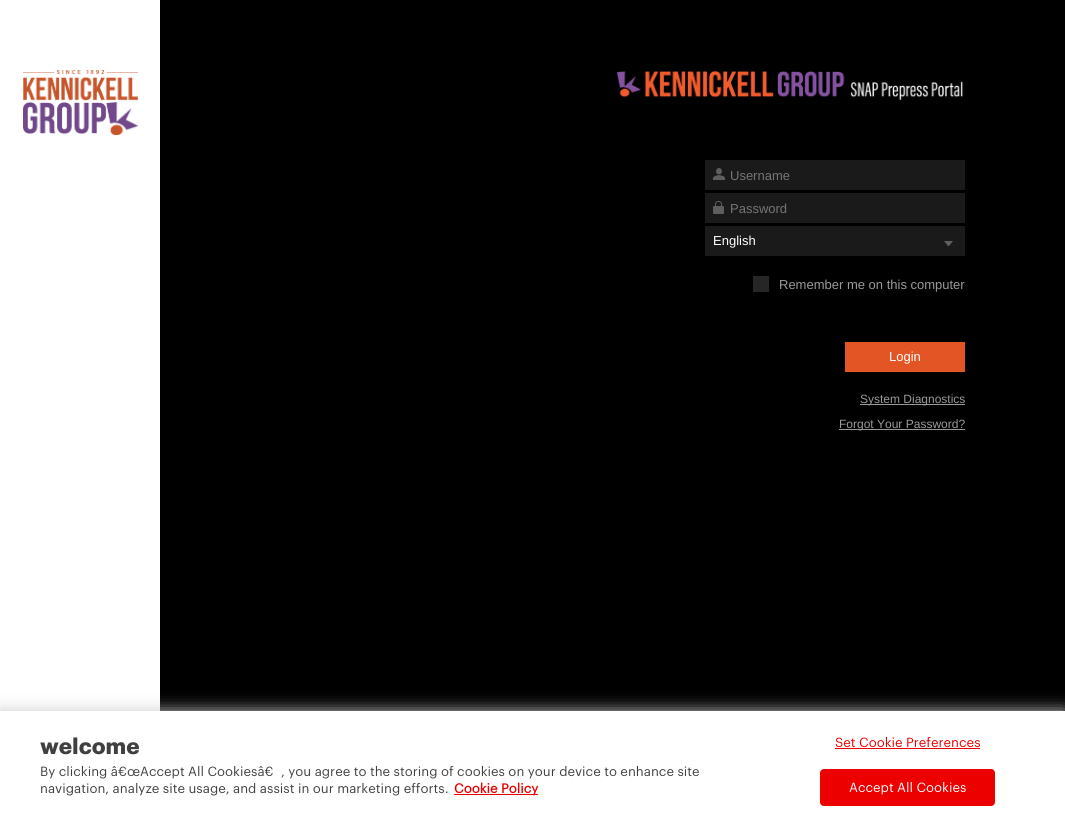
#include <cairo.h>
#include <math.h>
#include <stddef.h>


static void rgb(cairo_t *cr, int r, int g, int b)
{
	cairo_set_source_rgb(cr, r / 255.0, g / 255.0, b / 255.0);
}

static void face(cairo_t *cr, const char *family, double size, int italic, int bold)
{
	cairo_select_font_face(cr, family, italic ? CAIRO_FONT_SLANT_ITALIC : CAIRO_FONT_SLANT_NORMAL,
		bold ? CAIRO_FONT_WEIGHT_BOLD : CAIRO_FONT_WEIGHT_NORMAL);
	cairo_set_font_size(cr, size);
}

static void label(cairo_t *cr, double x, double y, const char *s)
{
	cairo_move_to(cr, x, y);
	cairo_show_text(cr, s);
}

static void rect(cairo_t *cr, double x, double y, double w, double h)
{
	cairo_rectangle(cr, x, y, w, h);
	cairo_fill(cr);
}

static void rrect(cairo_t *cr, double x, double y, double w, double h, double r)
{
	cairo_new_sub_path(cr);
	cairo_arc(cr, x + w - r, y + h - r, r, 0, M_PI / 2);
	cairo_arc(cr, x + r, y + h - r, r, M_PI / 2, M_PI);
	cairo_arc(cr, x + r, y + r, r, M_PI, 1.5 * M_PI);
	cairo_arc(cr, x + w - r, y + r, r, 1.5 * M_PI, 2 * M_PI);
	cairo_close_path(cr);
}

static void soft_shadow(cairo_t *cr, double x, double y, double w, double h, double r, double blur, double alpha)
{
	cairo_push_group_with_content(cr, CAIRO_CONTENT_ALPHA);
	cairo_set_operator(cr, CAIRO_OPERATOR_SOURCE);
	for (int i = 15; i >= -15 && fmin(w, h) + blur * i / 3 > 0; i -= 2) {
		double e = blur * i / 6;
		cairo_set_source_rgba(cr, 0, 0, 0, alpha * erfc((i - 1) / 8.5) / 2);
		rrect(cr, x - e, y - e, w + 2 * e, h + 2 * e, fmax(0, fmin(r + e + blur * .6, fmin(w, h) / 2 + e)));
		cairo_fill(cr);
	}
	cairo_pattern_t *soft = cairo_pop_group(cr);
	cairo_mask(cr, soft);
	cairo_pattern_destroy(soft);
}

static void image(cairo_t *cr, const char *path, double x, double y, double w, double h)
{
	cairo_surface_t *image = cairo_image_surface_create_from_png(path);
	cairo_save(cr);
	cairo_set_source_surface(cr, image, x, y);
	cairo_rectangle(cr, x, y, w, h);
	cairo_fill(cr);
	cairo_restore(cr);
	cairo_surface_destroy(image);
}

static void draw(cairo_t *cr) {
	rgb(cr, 255, 255, 255);
	cairo_paint(cr);
	image(cr, "image0.png", 23, 70, 115, 65);
	rgb(cr, 0, 0, 0);
	rect(cr, 160, 0, 905, 711);
	image(cr, "image1.png", 616, 71, 348, 29);
	rgb(cr, 26, 26, 26);
	rect(cr, 705, 160, 260, 30);
	image(cr, "image2.png", 713, 168, 12, 12);
	face(cr, "Liberation Sans", 13, 0, 0);
	rgb(cr, 117, 117, 117);
	label(cr, 730, 180, "Username");
	rgb(cr, 26, 26, 26);
	rect(cr, 705, 193, 260, 30);
	image(cr, "image3.png", 713, 201, 11, 13);
	rgb(cr, 117, 117, 117);
	label(cr, 730, 213, "Password");
	rgb(cr, 26, 26, 26);
	rect(cr, 705, 226, 260, 30);
	rgb(cr, 255, 255, 255);
	label(cr, 713, 245, "English");
	rgb(cr, 95, 95, 95);
	cairo_new_path(cr);
	cairo_move_to(cr, 944, 241);
	cairo_line_to(cr, 953, 241);
	cairo_line_to(cr, 949, 246);
	cairo_line_to(cr, 948, 246);
	cairo_close_path(cr);
	cairo_fill(cr);
	rgb(cr, 38, 38, 38);
	rect(cr, 753, 276, 16, 16);
	rgb(cr, 154, 154, 154);
	label(cr, 779, 289, "Remember me on this computer");
	rgb(cr, 227, 85, 37);
	rect(cr, 845, 342, 120, 30);
	rgb(cr, 255, 255, 255);
	label(cr, 889, 361, "Login");
	rgb(cr, 153, 153, 153);
	rect(cr, 860, 404, 105, 1);
	face(cr, "Liberation Sans", 12, 0, 0);
	rgb(cr, 154, 154, 154);
	label(cr, 860, 403, "System Diagnostics");
	rgb(cr, 153, 153, 153);
	rect(cr, 839, 429, 126, 1);
	rgb(cr, 154, 154, 154);
	label(cr, 839, 428, "Forgot Your Password?");
	rgb(cr, 204, 204, 204);
	soft_shadow(cr, 0, 711, 1065, 120, 0, 8, 1);
	rgb(cr, 255, 255, 255);
	rect(cr, 0, 711, 1065, 120);
	face(cr, "Graphik", 22, 0, 1);
	rgb(cr, 64, 64, 64);
	label(cr, 40, 754, "welcome");
	face(cr, "Graphik", 13, 0, 0);
	label(cr, 40, 776, "By clicking â€œAccept All Cookiesâ€");
	label(cr, 281, 776, ", you agree to the storing of cookies on your device to enhance site");
	label(cr, 40, 793, "navigation, analyze site usage, and assist in our marketing efforts.");
	rgb(cr, 237, 0, 0);
	rect(cr, 454, 794, 84, 1);
	face(cr, "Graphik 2", 13, 0, 1);
	label(cr, 454, 793, "Cookie Policy");
	face(cr, "Graphik", 13, 0, 0);
	label(cr, 835, 747, "Set Cookie Preferences");
	rect(cr, 835, 748, 145, 1);
	rrect(cr, 820, 769, 175, 37, 4);
	cairo_fill(cr);
	rgb(cr, 255, 255, 255);
	label(cr, 849, 792, "Accept All Cookies");
}

int main(void) {
	cairo_surface_t *surface = cairo_image_surface_create(CAIRO_FORMAT_RGB24, 1065, 831);
	cairo_t *cr = cairo_create(surface);
	cairo_font_options_t *options = cairo_font_options_create();
	cairo_font_options_set_hint_metrics(options, CAIRO_HINT_METRICS_OFF);
	cairo_font_options_set_hint_style(options, CAIRO_HINT_STYLE_NONE);
	cairo_set_font_options(cr, options);
	cairo_set_miter_limit(cr, 4);
	draw(cr);
	cairo_surface_write_to_png(surface, "render.png");
	cairo_font_options_destroy(options);
	cairo_destroy(cr);
	cairo_surface_destroy(surface);
	return 0;
}
